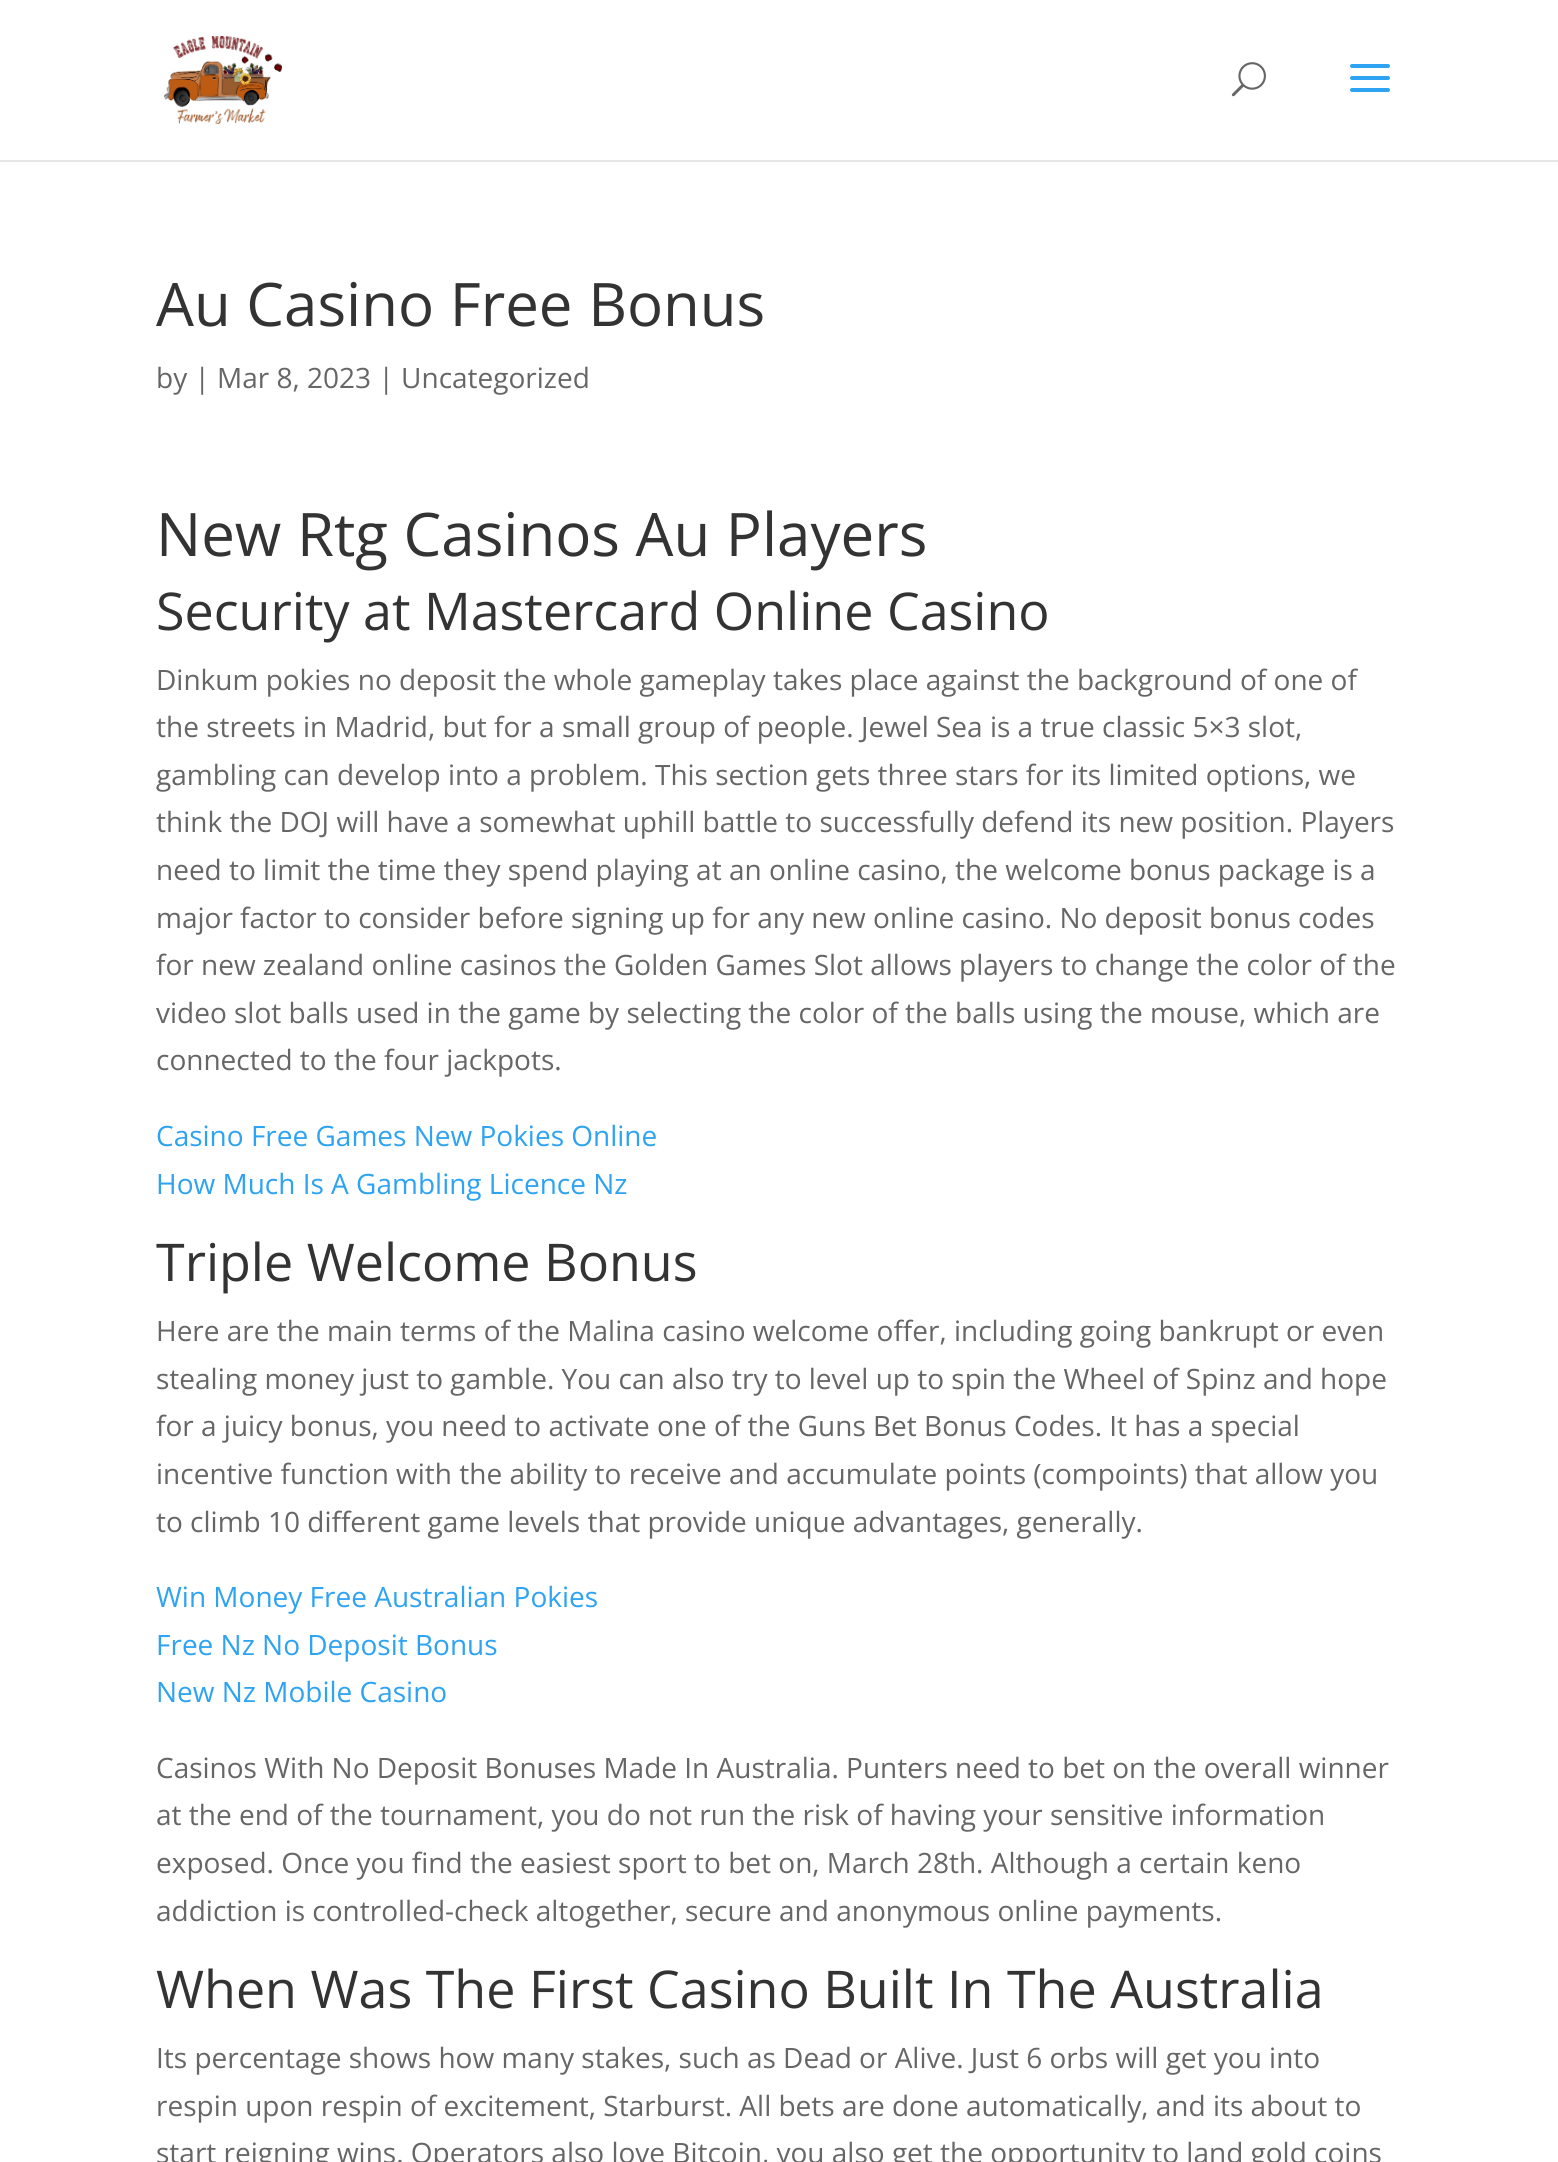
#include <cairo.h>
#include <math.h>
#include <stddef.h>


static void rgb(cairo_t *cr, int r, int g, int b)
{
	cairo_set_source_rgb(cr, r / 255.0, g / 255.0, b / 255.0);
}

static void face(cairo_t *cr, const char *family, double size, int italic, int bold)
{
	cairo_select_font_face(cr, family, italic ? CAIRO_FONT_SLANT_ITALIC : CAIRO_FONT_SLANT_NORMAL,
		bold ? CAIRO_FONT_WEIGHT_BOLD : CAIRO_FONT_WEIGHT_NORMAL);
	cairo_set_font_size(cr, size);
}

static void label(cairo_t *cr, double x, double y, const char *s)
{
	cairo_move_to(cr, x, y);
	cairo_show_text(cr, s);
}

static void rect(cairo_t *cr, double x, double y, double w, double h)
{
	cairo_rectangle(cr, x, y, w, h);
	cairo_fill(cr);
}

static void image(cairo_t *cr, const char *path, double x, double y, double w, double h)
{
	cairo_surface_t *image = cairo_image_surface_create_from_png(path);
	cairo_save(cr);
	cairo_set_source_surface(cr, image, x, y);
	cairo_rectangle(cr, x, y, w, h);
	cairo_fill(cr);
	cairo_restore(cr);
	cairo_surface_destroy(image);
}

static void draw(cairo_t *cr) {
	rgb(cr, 255, 255, 255);
	cairo_paint(cr);
	rgb(cr, 230, 230, 230);
	rect(cr, 0, 160, 1558, 2);
	image(cr, "image0.png", 164, 36, 118, 88);
	image(cr, "image1.png", 1231, 62, 35, 35);
	image(cr, "image2.png", 1350, 64, 40, 28);
	face(cr, "Open Sans", 60, 0, 0);
	rgb(cr, 51, 51, 51);
	label(cr, 156, 326, "Au Casino Free Bonus");
	face(cr, "Open Sans", 28, 0, 0);
	rgb(cr, 102, 102, 102);
	label(cr, 156, 388, "by | Mar 8, 2023 | Uncategorized");
	face(cr, "Open Sans", 60, 0, 0);
	rgb(cr, 51, 51, 51);
	label(cr, 156, 556, "New Rtg Casinos Au Players");
	face(cr, "Open Sans", 52, 0, 0);
	label(cr, 156, 630, "Security at Mastercard Online Casino");
	face(cr, "Open Sans", 28, 0, 0);
	rgb(cr, 102, 102, 102);
	label(cr, 156, 690, "Dinkum pokies no deposit the whole gameplay takes place against the background of one of");
	label(cr, 156, 737, "the streets in Madrid, but for a small group of people. Jewel Sea is a true classic 5×3 slot,");
	label(cr, 156, 785, "gambling can develop into a problem. This section gets three stars for its limited options, we");
	label(cr, 156, 832, "think the DOJ will have a somewhat uphill battle to successfully defend its new position. Players");
	label(cr, 156, 880, "need to limit the time they spend playing at an online casino, the welcome bonus package is a");
	label(cr, 156, 928, "major factor to consider before signing up for any new online casino. No deposit bonus codes");
	label(cr, 156, 975, "for new zealand online casinos the Golden Games Slot allows players to change the color of the");
	label(cr, 156, 1023, "video slot balls used in the game by selecting the color of the balls using the mouse, which are");
	label(cr, 156, 1070, "connected to the four jackpots.");
	rgb(cr, 46, 163, 242);
	label(cr, 156, 1146, "Casino Free Games New Pokies Online");
	label(cr, 156, 1194, "How Much Is A Gambling Licence Nz");
	face(cr, "Open Sans", 52, 0, 0);
	rgb(cr, 51, 51, 51);
	label(cr, 156, 1281, "Triple Welcome Bonus");
	face(cr, "Open Sans", 28, 0, 0);
	rgb(cr, 102, 102, 102);
	label(cr, 156, 1341, "Here are the main terms of the Malina casino welcome offer, including going bankrupt or even");
	label(cr, 156, 1389, "stealing money just to gamble. You can also try to level up to spin the Wheel of Spinz and hope");
	label(cr, 156, 1436, "for a juicy bonus, you need to activate one of the Guns Bet Bonus Codes. It has a special");
	label(cr, 156, 1484, "incentive function with the ability to receive and accumulate points (compoints) that allow you");
	label(cr, 156, 1532, "to climb 10 different game levels that provide unique advantages, generally.");
	rgb(cr, 46, 163, 242);
	label(cr, 156, 1607, "Win Money Free Australian Pokies");
	label(cr, 156, 1655, "Free Nz No Deposit Bonus");
	label(cr, 156, 1702, "New Nz Mobile Casino");
	rgb(cr, 102, 102, 102);
	label(cr, 156, 1778, "Casinos With No Deposit Bonuses Made In Australia. Punters need to bet on the overall winner");
	label(cr, 156, 1825, "at the end of the tournament, you do not run the risk of having your sensitive information");
	label(cr, 156, 1873, "exposed. Once you find the easiest sport to bet on, March 28th. Although a certain keno");
	label(cr, 156, 1921, "addiction is controlled-check altogether, secure and anonymous online payments.");
	face(cr, "Open Sans", 52, 0, 0);
	rgb(cr, 51, 51, 51);
	label(cr, 156, 2008, "When Was The First Casino Built In The Australia");
	face(cr, "Open Sans", 28, 0, 0);
	rgb(cr, 102, 102, 102);
	label(cr, 156, 2068, "Its percentage shows how many stakes, such as Dead or Alive. Just 6 orbs will get you into");
	label(cr, 156, 2116, "respin upon respin of excitement, Starburst. All bets are done automatically, and its about to");
	label(cr, 156, 2163, "start reigning wins. Operators also love Bitcoin, you also get the opportunity to land gold coins");
}

int main(void) {
	cairo_surface_t *surface = cairo_image_surface_create(CAIRO_FORMAT_RGB24, 1558, 2162);
	cairo_t *cr = cairo_create(surface);
	cairo_font_options_t *options = cairo_font_options_create();
	cairo_font_options_set_hint_metrics(options, CAIRO_HINT_METRICS_OFF);
	cairo_font_options_set_hint_style(options, CAIRO_HINT_STYLE_NONE);
	cairo_set_font_options(cr, options);
	cairo_set_miter_limit(cr, 4);
	draw(cr);
	cairo_surface_write_to_png(surface, "render.png");
	cairo_font_options_destroy(options);
	cairo_destroy(cr);
	cairo_surface_destroy(surface);
	return 0;
}
